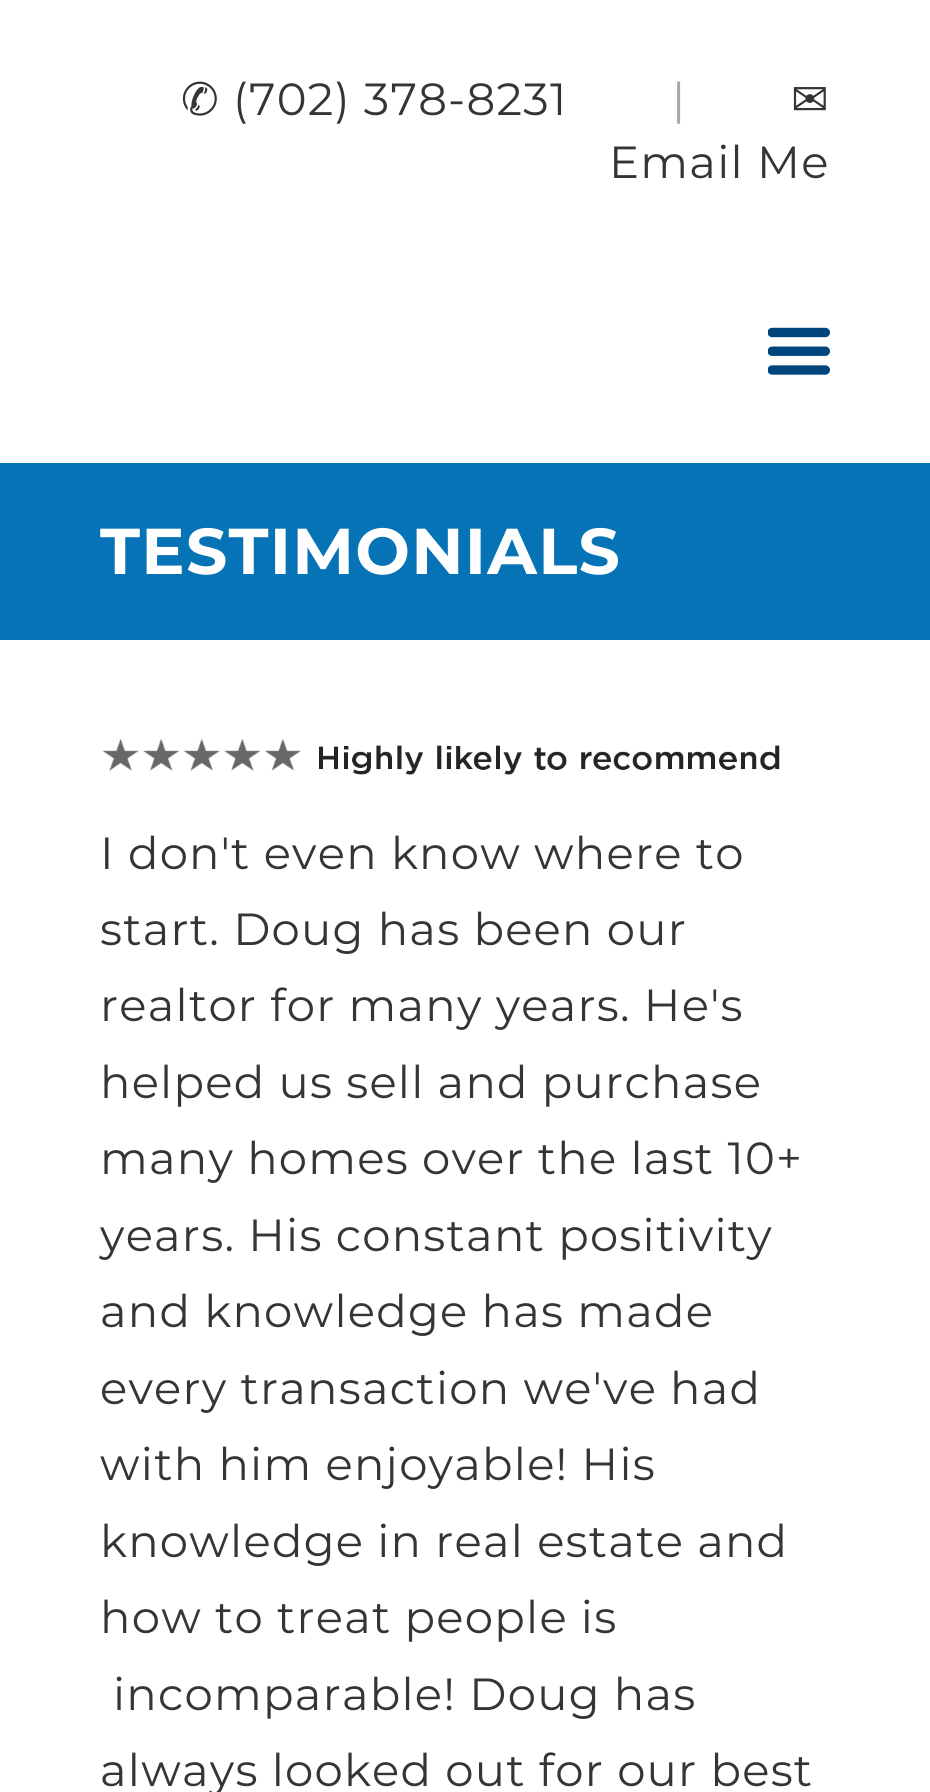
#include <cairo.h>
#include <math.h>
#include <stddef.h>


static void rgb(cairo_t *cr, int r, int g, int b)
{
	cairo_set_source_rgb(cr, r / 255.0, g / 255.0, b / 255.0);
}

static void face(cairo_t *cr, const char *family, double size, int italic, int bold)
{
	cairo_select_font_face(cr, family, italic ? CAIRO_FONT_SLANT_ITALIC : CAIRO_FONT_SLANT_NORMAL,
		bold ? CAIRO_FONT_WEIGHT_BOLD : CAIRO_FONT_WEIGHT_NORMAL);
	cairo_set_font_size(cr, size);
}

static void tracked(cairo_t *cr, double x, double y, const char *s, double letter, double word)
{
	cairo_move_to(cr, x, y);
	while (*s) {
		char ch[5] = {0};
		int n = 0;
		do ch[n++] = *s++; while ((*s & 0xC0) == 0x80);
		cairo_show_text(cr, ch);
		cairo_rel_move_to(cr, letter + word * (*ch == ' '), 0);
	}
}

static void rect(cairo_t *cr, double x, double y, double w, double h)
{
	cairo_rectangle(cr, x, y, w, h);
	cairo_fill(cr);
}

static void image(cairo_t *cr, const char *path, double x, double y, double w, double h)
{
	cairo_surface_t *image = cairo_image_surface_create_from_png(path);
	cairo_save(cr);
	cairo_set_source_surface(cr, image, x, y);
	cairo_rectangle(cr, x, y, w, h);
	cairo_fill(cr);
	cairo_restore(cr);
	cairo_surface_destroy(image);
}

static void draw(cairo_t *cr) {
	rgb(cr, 255, 255, 255);
	cairo_paint(cr);
	face(cr, "DejaVu Sans", 45, 0, 0);
	rgb(cr, 53, 53, 53);
	tracked(cr, 181, 115, "✆", 1.25, 0);
	face(cr, "Montserrat", 45, 0, 0);
	tracked(cr, 233, 115, "(702) 378-8231", 1.25, 0);
	rgb(cr, 166, 166, 166);
	tracked(cr, 672, 115, "|", 1.25, 0);
	face(cr, "DejaVu Sans", 45, 0, 0);
	rgb(cr, 53, 53, 53);
	tracked(cr, 791, 115, "✉", 1.25, 0);
	face(cr, "Montserrat", 45, 0, 0);
	tracked(cr, 609, 178, "Email Me", 1.25, 0);
	image(cr, "image0.png", 768, 327, 62, 48);
	rgb(cr, 6, 115, 183);
	rect(cr, 0, 463, 930, 177);
	face(cr, "Montserrat", 64.75, 0, 1);
	rgb(cr, 255, 255, 255);
	tracked(cr, 100, 574, "TESTIMONIALS", 1.25, 0);
	image(cr, "image1.png", 102, 739, 678, 36);
	face(cr, "Montserrat", 45, 0, 0);
	rgb(cr, 53, 53, 53);
	tracked(cr, 100, 869, "I don't even know where to", 1.25, 0);
	tracked(cr, 100, 945, "start. Doug has been our", 1.25, 0);
	tracked(cr, 100, 1021, "realtor for many years. He's", 1.25, 0);
	tracked(cr, 100, 1098, "helped us sell and purchase", 1.25, 0);
	tracked(cr, 100, 1174, "many homes over the last 10+", 1.25, 0);
	tracked(cr, 100, 1251, "years. His constant positivity", 1.25, 0);
	tracked(cr, 100, 1327, "and knowledge has made", 1.25, 0);
	tracked(cr, 100, 1404, "every transaction we've had", 1.25, 0);
	tracked(cr, 100, 1480, "with him enjoyable! His", 1.25, 0);
	tracked(cr, 100, 1557, "knowledge in real estate and", 1.25, 0);
	tracked(cr, 100, 1633, "how to treat people is", 1.25, 0);
	tracked(cr, 113, 1710, "incomparable! Doug has", 1.25, 0);
	tracked(cr, 100, 1786, "always looked out for our best", 1.25, 0);
}

int main(void) {
	cairo_surface_t *surface = cairo_image_surface_create(CAIRO_FORMAT_RGB24, 930, 1792);
	cairo_t *cr = cairo_create(surface);
	cairo_font_options_t *options = cairo_font_options_create();
	cairo_font_options_set_hint_metrics(options, CAIRO_HINT_METRICS_OFF);
	cairo_font_options_set_hint_style(options, CAIRO_HINT_STYLE_NONE);
	cairo_set_font_options(cr, options);
	cairo_set_miter_limit(cr, 4);
	draw(cr);
	cairo_surface_write_to_png(surface, "render.png");
	cairo_font_options_destroy(options);
	cairo_destroy(cr);
	cairo_surface_destroy(surface);
	return 0;
}
